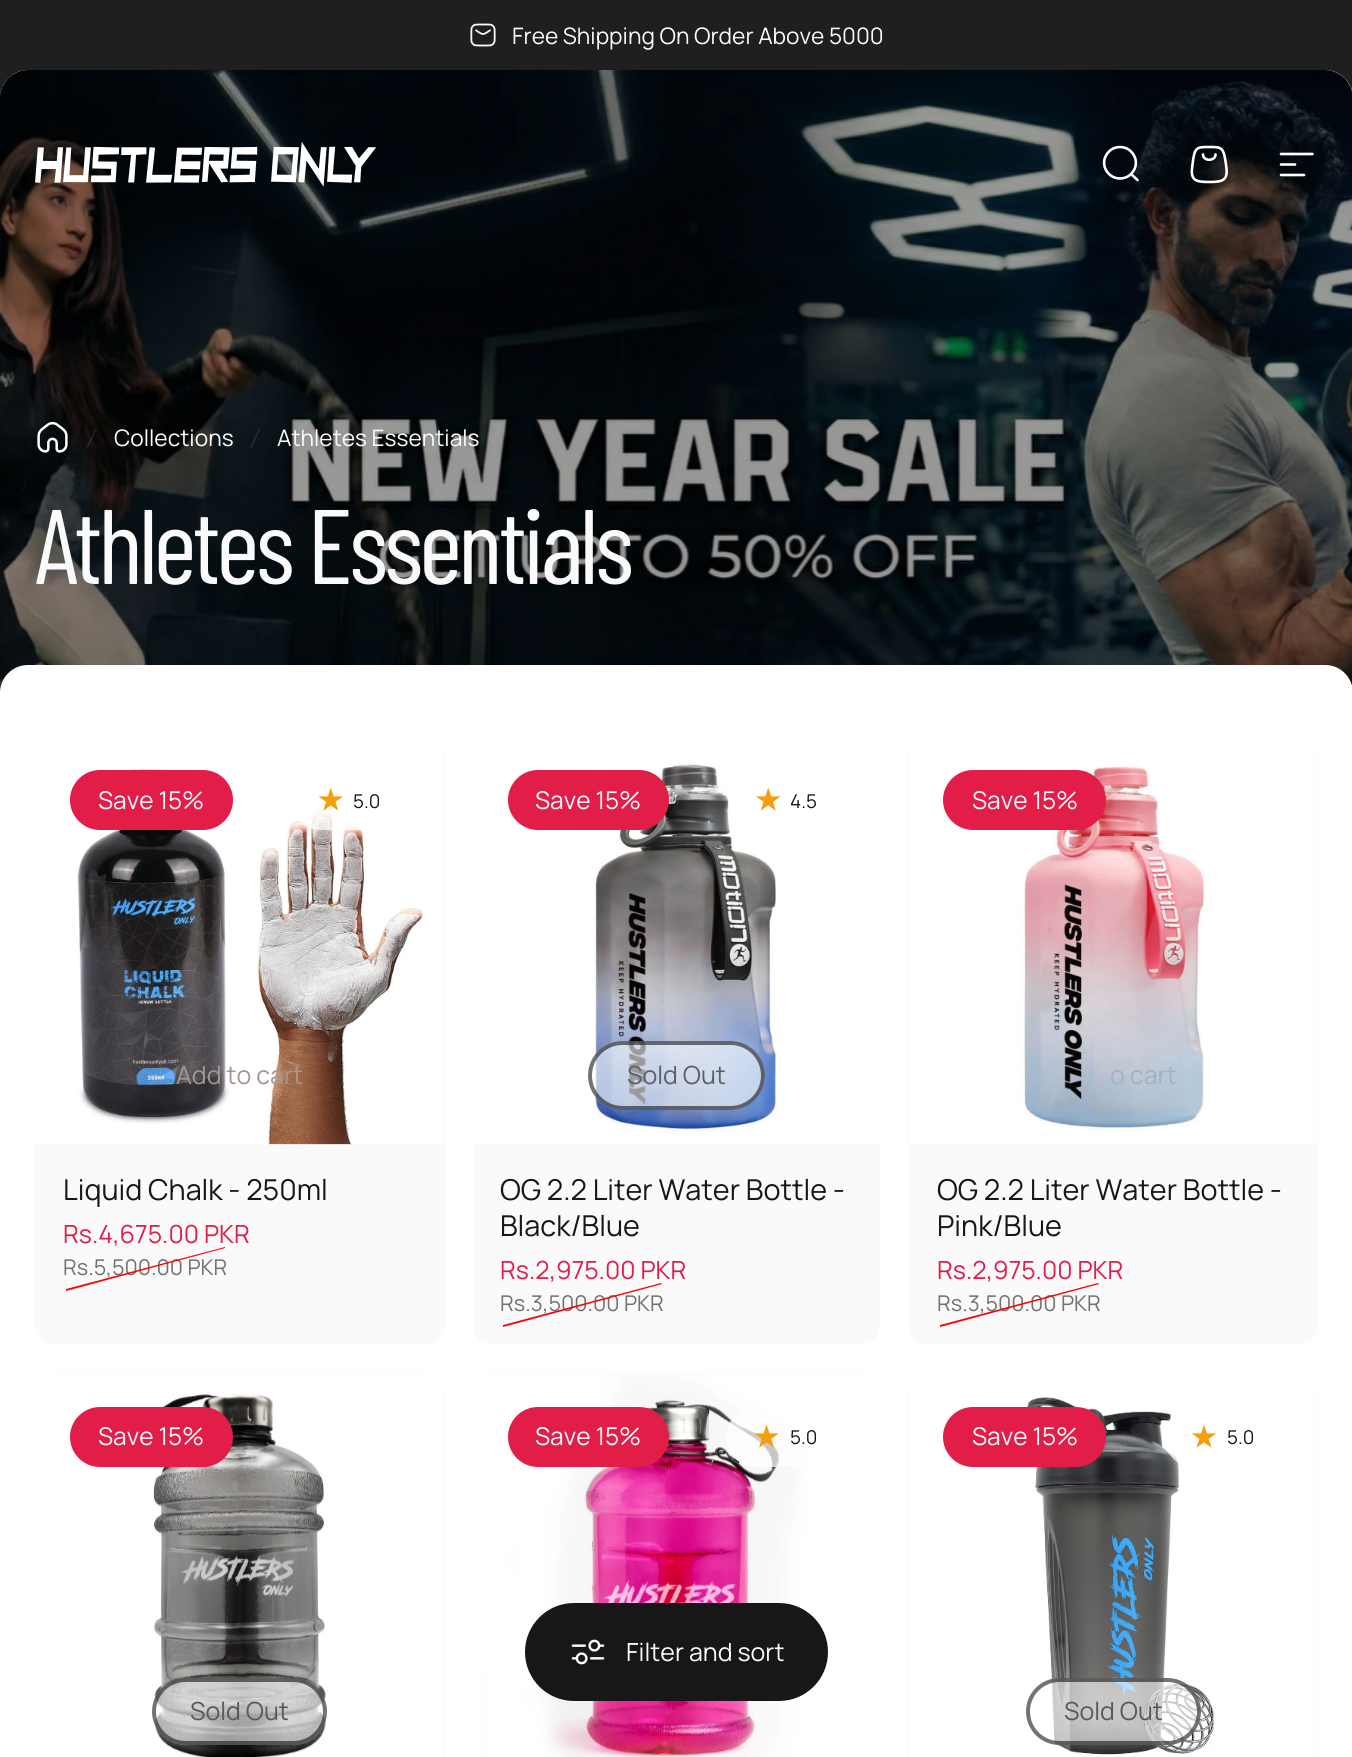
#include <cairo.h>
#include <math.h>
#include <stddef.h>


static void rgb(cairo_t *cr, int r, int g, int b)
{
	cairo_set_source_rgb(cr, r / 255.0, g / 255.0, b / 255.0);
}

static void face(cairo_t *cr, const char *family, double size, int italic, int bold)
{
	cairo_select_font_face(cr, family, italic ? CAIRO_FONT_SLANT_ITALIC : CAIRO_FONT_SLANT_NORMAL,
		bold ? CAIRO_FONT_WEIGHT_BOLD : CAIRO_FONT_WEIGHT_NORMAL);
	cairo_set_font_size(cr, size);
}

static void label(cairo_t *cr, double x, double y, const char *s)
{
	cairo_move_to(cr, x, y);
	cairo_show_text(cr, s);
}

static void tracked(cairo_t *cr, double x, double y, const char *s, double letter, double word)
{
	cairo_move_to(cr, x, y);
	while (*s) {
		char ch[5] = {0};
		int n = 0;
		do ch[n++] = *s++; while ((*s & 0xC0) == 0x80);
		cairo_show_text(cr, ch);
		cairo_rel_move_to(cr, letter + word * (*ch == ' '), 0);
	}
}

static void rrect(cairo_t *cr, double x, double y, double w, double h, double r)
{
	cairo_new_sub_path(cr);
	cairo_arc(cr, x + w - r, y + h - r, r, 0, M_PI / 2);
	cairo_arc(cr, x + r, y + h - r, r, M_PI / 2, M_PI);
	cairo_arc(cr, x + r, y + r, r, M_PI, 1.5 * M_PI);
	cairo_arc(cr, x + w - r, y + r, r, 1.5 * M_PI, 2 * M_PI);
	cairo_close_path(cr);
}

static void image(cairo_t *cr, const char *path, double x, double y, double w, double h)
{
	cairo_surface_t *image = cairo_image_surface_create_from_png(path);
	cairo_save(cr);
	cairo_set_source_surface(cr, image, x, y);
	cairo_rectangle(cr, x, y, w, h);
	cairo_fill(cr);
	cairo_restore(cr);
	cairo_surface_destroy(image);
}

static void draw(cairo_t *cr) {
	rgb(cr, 31, 31, 31);
	cairo_paint(cr);
	image(cr, "image0.png", 470, 23, 26, 24);
	face(cr, "Manrope", 22.75, 0, 0);
	rgb(cr, 250, 250, 250);
	label(cr, 512, 44, "Free Shipping On Order Above 5000");
	cairo_new_path(cr);
	cairo_move_to(cr, 28, 70);
	cairo_line_to(cr, 1325, 70);
	cairo_curve_to(cr, 1340.5, 70, 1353, 82.5, 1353, 98);
	cairo_line_to(cr, 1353, 693);
	cairo_line_to(cr, 0, 693);
	cairo_line_to(cr, 0, 98);
	cairo_curve_to(cr, 0, 82.5, 12.5, 70, 28, 70);
	cairo_close_path(cr);
	cairo_fill(cr);
	image(cr, "image2.png", 0, 70, 1352, 623);
	cairo_set_source_rgba(cr, 0, 0, 0, 0.4);
	cairo_new_path(cr);
	cairo_move_to(cr, 28, 70);
	cairo_line_to(cr, 1325, 70);
	cairo_curve_to(cr, 1340.5, 70, 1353, 82.5, 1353, 98);
	cairo_line_to(cr, 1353, 693);
	cairo_line_to(cr, 0, 693);
	cairo_line_to(cr, 0, 98);
	cairo_curve_to(cr, 0, 82.5, 12.5, 70, 28, 70);
	cairo_close_path(cr);
	cairo_fill(cr);
	image(cr, "image1.png", 35, 142, 341, 45);
	cairo_new_path(cr);
	cairo_move_to(cr, 1137.5, 180);
	cairo_line_to(cr, 1131, 174);
	cairo_move_to(cr, 1131, 174);
	cairo_curve_to(cr, 1137.5, 167.5, 1137.5, 158, 1131, 151.5);
	cairo_curve_to(cr, 1125, 145.5, 1115, 145.5, 1109, 151.5);
	cairo_curve_to(cr, 1102.5, 158, 1102.5, 167.5, 1109, 174);
	cairo_curve_to(cr, 1115, 180, 1125, 180, 1131, 174);
	cairo_close_path(cr);
	rgb(cr, 255, 255, 255);
	cairo_set_line_width(cr, 2.6);
	cairo_set_line_cap(cr, CAIRO_LINE_CAP_ROUND);
	cairo_stroke(cr);
	cairo_new_path(cr);
	cairo_move_to(cr, 1215.5, 154.5);
	cairo_curve_to(cr, 1215.5, 161.5, 1203, 161.5, 1203, 154.5);
	cairo_move_to(cr, 1226, 164.5);
	cairo_curve_to(cr, 1228.5, 180, 1224, 182, 1209, 182);
	cairo_curve_to(cr, 1194.5, 182, 1190, 180, 1192.5, 164.5);
	cairo_curve_to(cr, 1194.5, 147, 1196.5, 147, 1209, 147);
	cairo_curve_to(cr, 1222, 147, 1223.5, 147, 1226, 164.5);
	cairo_close_path(cr);
	cairo_set_line_join(cr, CAIRO_LINE_JOIN_ROUND);
	cairo_stroke(cr);
	cairo_new_path(cr);
	cairo_move_to(cr, 1281, 154);
	cairo_line_to(cr, 1312.5, 154);
	cairo_move_to(cr, 1281, 164.5);
	cairo_line_to(cr, 1295, 164.5);
	cairo_move_to(cr, 1281, 175);
	cairo_line_to(cr, 1304, 175);
	cairo_set_line_join(cr, CAIRO_LINE_JOIN_MITER);
	cairo_stroke(cr);
	image(cr, "image3.png", 37, 421, 31, 32);
	cairo_set_source_rgba(cr, 1, 1, 1, 0.1);
	cairo_new_path(cr);
	cairo_move_to(cr, 95.5, 428);
	cairo_line_to(cr, 97, 428.5);
	cairo_line_to(cr, 88, 448);
	cairo_line_to(cr, 86.5, 447);
	cairo_close_path(cr);
	cairo_fill(cr);
	rgb(cr, 250, 250, 250);
	label(cr, 114, 446, "Collections");
	cairo_set_source_rgba(cr, 1, 1, 1, 0.1);
	cairo_new_path(cr);
	cairo_move_to(cr, 259, 428);
	cairo_line_to(cr, 260.5, 428.5);
	cairo_line_to(cr, 251.5, 448);
	cairo_line_to(cr, 250, 447);
	cairo_close_path(cr);
	cairo_fill(cr);
	rgb(cr, 250, 250, 250);
	label(cr, 277, 446, "Athletes Essentials");
	face(cr, "Barlow Condensed", 105.75, 0, 0);
	tracked(cr, 35, 584, "Athletes Essentials", -4.25, 0);
	rgb(cr, 255, 255, 255);
	cairo_new_path(cr);
	cairo_move_to(cr, 28, 665);
	cairo_line_to(cr, 1325, 665);
	cairo_curve_to(cr, 1340.5, 665, 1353, 677.5, 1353, 693);
	cairo_line_to(cr, 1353, 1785);
	cairo_line_to(cr, 0, 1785);
	cairo_line_to(cr, 0, 693);
	cairo_curve_to(cr, 0, 677.5, 12.5, 665, 28, 665);
	cairo_close_path(cr);
	cairo_fill(cr);
	rgb(cr, 250, 250, 250);
	rrect(cr, 35, 735, 410, 609, 18);
	cairo_fill(cr);
	image(cr, "image4.png", 35, 735, 409, 410);
	rgb(cr, 225, 29, 72);
	rrect(cr, 70, 770, 163, 60, 30);
	cairo_fill(cr);
	face(cr, "Manrope", 24.5, 0, 0);
	rgb(cr, 250, 250, 250);
	label(cr, 98, 809, "Save 15%");
	cairo_set_source_rgba(cr, 1, 1, 1, 0.75);
	rrect(cr, 291, 770, 119, 60, 30);
	cairo_fill(cr);
	image(cr, "image5.png", 319, 788, 24, 23);
	face(cr, "Manrope", 19, 0, 0);
	rgb(cr, 23, 23, 23);
	label(cr, 353, 808, "5.0");
	rgb(cr, 255, 255, 255);
	cairo_new_path(cr);
	cairo_move_to(cr, 258.5, 1041);
	cairo_curve_to(cr, 246, 1041.5, 234, 1041.5, 221.5, 1041);
	cairo_close_path(cr);
	cairo_fill(cr);
	face(cr, "Manrope", 25, 0, 0);
	rgb(cr, 164, 151, 145);
	label(cr, 176, 1084, "Add to cart");
	face(cr, "Manrope", 28.75, 0, 0);
	rgb(cr, 23, 23, 23);
	label(cr, 63, 1200, "Liquid Chalk - 250ml");
	face(cr, "Manrope", 25, 0, 0);
	rgb(cr, 225, 29, 72);
	label(cr, 63, 1243, "Rs.4,675.00 PKR");
	face(cr, "Manrope", 21.75, 0, 0);
	rgb(cr, 114, 114, 114);
	label(cr, 63, 1275, "Rs.5,500.00 PKR");
	rgb(cr, 255, 0, 0);
	cairo_new_path(cr);
	cairo_move_to(cr, 66, 1289);
	cairo_line_to(cr, 225, 1247);
	cairo_line_to(cr, 225, 1248);
	cairo_line_to(cr, 66, 1291);
	cairo_close_path(cr);
	cairo_fill(cr);
	rgb(cr, 250, 250, 250);
	rrect(cr, 473, 735, 407, 609, 18);
	cairo_fill(cr);
	image(cr, "image6.png", 473, 735, 407, 409);
	rgb(cr, 225, 29, 72);
	rrect(cr, 508, 770, 161, 60, 30);
	cairo_fill(cr);
	face(cr, "Manrope", 24.5, 0, 0);
	rgb(cr, 250, 250, 250);
	label(cr, 535, 809, "Save 15%");
	cairo_set_source_rgba(cr, 1, 1, 1, 0.75);
	rrect(cr, 728, 770, 117, 60, 30);
	cairo_fill(cr);
	image(cr, "image7.png", 756, 788, 25, 23);
	face(cr, "Manrope", 19, 0, 0);
	rgb(cr, 23, 23, 23);
	label(cr, 790, 808, "4.5");
	cairo_set_source_rgba(cr, 1, 1, 1, 0.6);
	rrect(cr, 588, 1041, 177, 69, 34.5);
	cairo_fill(cr);
	rrect(cr, 590, 1043, 173, 65, 32.5);
	cairo_set_source_rgba(cr, 0.09, 0.09, 0.09, 0.6);
	cairo_set_line_width(cr, 4);
	cairo_set_line_cap(cr, CAIRO_LINE_CAP_BUTT);
	cairo_stroke(cr);
	face(cr, "Manrope", 25, 0, 0);
	rgb(cr, 93, 96, 103);
	label(cr, 627, 1084, "Sold Out");
	face(cr, "Manrope", 28.75, 0, 0);
	rgb(cr, 23, 23, 23);
	label(cr, 500, 1200, "OG 2.2 Liter Water Bottle -");
	label(cr, 500, 1236, "Black/Blue");
	face(cr, "Manrope", 25, 0, 0);
	rgb(cr, 225, 29, 72);
	label(cr, 500, 1279, "Rs.2,975.00 PKR");
	face(cr, "Manrope", 21.75, 0, 0);
	rgb(cr, 114, 114, 114);
	label(cr, 500, 1311, "Rs.3,500.00 PKR");
	rgb(cr, 255, 0, 0);
	cairo_new_path(cr);
	cairo_move_to(cr, 503, 1325);
	cairo_line_to(cr, 661, 1283);
	cairo_line_to(cr, 662, 1284);
	cairo_line_to(cr, 503, 1327);
	cairo_close_path(cr);
	cairo_fill(cr);
	rgb(cr, 250, 250, 250);
	rrect(cr, 908, 735, 410, 609, 18);
	cairo_fill(cr);
	image(cr, "image8.png", 909, 735, 408, 409);
	rgb(cr, 225, 29, 72);
	rrect(cr, 943, 770, 163, 60, 30);
	cairo_fill(cr);
	face(cr, "Manrope", 24.5, 0, 0);
	rgb(cr, 250, 250, 250);
	label(cr, 972, 809, "Save 15%");
	face(cr, "Manrope", 25, 0, 0);
	rgb(cr, 165, 176, 191);
	label(cr, 1110, 1084, "o cart");
	face(cr, "Manrope", 28.75, 0, 0);
	rgb(cr, 23, 23, 23);
	label(cr, 937, 1200, "OG 2.2 Liter Water Bottle -");
	label(cr, 937, 1236, "Pink/Blue");
	face(cr, "Manrope", 25, 0, 0);
	rgb(cr, 225, 29, 72);
	label(cr, 937, 1279, "Rs.2,975.00 PKR");
	face(cr, "Manrope", 21.75, 0, 0);
	rgb(cr, 114, 114, 114);
	label(cr, 937, 1311, "Rs.3,500.00 PKR");
	rgb(cr, 255, 0, 0);
	cairo_new_path(cr);
	cairo_move_to(cr, 940, 1325);
	cairo_line_to(cr, 1098, 1283);
	cairo_line_to(cr, 1099, 1284);
	cairo_line_to(cr, 940, 1327);
	cairo_close_path(cr);
	cairo_fill(cr);
	rgb(cr, 250, 250, 250);
	rrect(cr, 35, 1372, 410, 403, 18);
	cairo_fill(cr);
	image(cr, "image9.png", 35, 1373, 409, 384);
	rgb(cr, 225, 29, 72);
	rrect(cr, 70, 1407, 163, 60, 30);
	cairo_fill(cr);
	face(cr, "Manrope", 24.5, 0, 0);
	rgb(cr, 250, 250, 250);
	label(cr, 98, 1445, "Save 15%");
	cairo_set_source_rgba(cr, 1, 1, 1, 0.6);
	rrect(cr, 152, 1678, 175, 67, 33.5);
	cairo_fill(cr);
	rrect(cr, 154, 1680, 171, 63, 31.5);
	cairo_set_source_rgba(cr, 0.09, 0.09, 0.09, 0.6);
	cairo_stroke(cr);
	face(cr, "Manrope", 25, 0, 0);
	rgb(cr, 90, 89, 89);
	label(cr, 190, 1720, "Sold Out");
	rgb(cr, 250, 250, 250);
	rrect(cr, 473, 1372, 407, 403, 18);
	cairo_fill(cr);
	image(cr, "image10.png", 473, 1373, 407, 384);
	rgb(cr, 225, 29, 72);
	rrect(cr, 508, 1407, 161, 60, 30);
	cairo_fill(cr);
	face(cr, "Manrope", 24.5, 0, 0);
	rgb(cr, 250, 250, 250);
	label(cr, 535, 1445, "Save 15%");
	cairo_set_source_rgba(cr, 1, 1, 1, 0.75);
	rrect(cr, 726, 1407, 119, 60, 30);
	cairo_fill(cr);
	image(cr, "image11.png", 754, 1425, 25, 23);
	face(cr, "Manrope", 19, 0, 0);
	rgb(cr, 23, 23, 23);
	label(cr, 790, 1444, "5.0");
	rgb(cr, 250, 250, 250);
	rrect(cr, 908, 1372, 410, 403, 18);
	cairo_fill(cr);
	image(cr, "image12.png", 909, 1372, 408, 385);
	rgb(cr, 225, 29, 72);
	rrect(cr, 943, 1407, 163, 60, 30);
	cairo_fill(cr);
	face(cr, "Manrope", 24.5, 0, 0);
	rgb(cr, 250, 250, 250);
	label(cr, 972, 1445, "Save 15%");
	cairo_set_source_rgba(cr, 1, 1, 1, 0.75);
	rrect(cr, 1164, 1407, 119, 60, 30);
	cairo_fill(cr);
	image(cr, "image13.png", 1192, 1425, 24, 23);
	face(cr, "Manrope", 19, 0, 0);
	rgb(cr, 23, 23, 23);
	label(cr, 1227, 1444, "5.0");
	cairo_set_source_rgba(cr, 1, 1, 1, 0.6);
	rrect(cr, 1026, 1678, 175, 67, 33.5);
	cairo_fill(cr);
	rrect(cr, 1028, 1680, 171, 63, 31.5);
	cairo_set_source_rgba(cr, 0.09, 0.09, 0.09, 0.6);
	cairo_stroke(cr);
	face(cr, "Manrope", 25, 0, 0);
	rgb(cr, 90, 89, 89);
	label(cr, 1064, 1720, "Sold Out");
	rgb(cr, 23, 23, 23);
	rrect(cr, 527, 1605, 299, 94, 47);
	cairo_fill_preserve(cr);
	cairo_stroke(cr);
	image(cr, "image14.png", 571, 1639, 34, 26);
	rgb(cr, 250, 250, 250);
	label(cr, 626, 1661, "Filter and sort");
}

int main(void) {
	cairo_surface_t *surface = cairo_image_surface_create(CAIRO_FORMAT_RGB24, 1352, 1757);
	cairo_t *cr = cairo_create(surface);
	cairo_font_options_t *options = cairo_font_options_create();
	cairo_font_options_set_hint_metrics(options, CAIRO_HINT_METRICS_OFF);
	cairo_font_options_set_hint_style(options, CAIRO_HINT_STYLE_NONE);
	cairo_set_font_options(cr, options);
	cairo_set_miter_limit(cr, 4);
	draw(cr);
	cairo_surface_write_to_png(surface, "render.png");
	cairo_font_options_destroy(options);
	cairo_destroy(cr);
	cairo_surface_destroy(surface);
	return 0;
}
